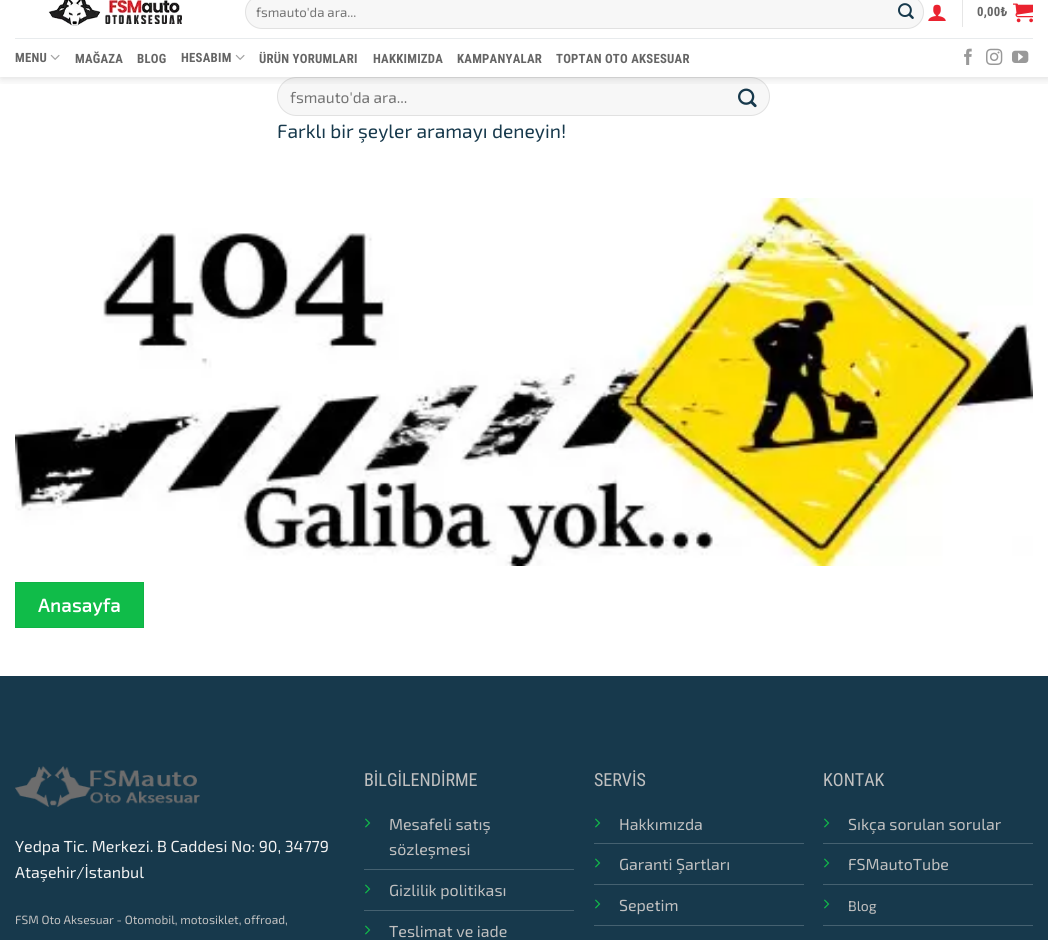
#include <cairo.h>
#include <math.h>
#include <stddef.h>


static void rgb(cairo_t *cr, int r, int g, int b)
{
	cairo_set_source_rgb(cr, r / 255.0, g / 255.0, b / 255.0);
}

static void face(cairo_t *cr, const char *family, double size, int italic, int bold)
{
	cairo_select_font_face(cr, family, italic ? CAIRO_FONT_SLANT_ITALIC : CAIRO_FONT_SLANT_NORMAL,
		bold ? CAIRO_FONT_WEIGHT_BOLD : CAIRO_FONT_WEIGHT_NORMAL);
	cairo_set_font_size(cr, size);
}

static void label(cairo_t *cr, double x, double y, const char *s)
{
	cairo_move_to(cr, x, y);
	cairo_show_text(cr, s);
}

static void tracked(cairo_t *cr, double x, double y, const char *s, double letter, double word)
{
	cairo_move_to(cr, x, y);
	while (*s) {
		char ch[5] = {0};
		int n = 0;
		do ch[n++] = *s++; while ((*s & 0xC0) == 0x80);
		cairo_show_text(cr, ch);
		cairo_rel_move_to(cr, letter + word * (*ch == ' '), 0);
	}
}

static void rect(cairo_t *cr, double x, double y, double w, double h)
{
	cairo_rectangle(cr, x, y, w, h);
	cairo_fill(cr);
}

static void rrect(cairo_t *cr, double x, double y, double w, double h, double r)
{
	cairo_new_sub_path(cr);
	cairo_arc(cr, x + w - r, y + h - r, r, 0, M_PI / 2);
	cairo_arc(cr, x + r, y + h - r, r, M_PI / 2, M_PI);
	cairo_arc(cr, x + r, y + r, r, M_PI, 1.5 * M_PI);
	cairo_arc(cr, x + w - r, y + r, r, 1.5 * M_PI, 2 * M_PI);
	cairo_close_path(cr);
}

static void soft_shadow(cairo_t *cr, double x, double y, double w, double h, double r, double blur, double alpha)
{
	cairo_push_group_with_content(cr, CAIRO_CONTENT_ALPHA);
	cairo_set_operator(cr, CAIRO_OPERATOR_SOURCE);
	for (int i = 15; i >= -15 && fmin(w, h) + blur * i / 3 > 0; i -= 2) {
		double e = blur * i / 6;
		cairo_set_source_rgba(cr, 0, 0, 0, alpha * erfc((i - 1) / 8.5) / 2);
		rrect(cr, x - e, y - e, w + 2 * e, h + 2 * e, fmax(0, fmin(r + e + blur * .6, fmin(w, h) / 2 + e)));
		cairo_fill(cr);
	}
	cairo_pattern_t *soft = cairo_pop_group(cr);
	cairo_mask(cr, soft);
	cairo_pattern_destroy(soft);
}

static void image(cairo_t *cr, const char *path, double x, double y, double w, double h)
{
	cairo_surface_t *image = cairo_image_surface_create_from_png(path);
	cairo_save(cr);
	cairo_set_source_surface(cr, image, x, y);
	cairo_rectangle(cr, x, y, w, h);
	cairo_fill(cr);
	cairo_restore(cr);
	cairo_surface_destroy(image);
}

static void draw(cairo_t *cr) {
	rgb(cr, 255, 255, 255);
	cairo_paint(cr);
	rgb(cr, 247, 247, 247);
	rrect(cr, 277, 77, 493, 39, 19.5);
	cairo_fill(cr);
	rrect(cr, 277.5, 77.5, 492, 38, 19);
	cairo_set_source_rgba(cr, 0, 0, 0, 0.09);
	cairo_set_line_width(cr, 1);
	cairo_stroke(cr);
	image(cr, "image8.png", 738, 88, 19, 20);
	cairo_save(cr);
	cairo_rectangle(cr, 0, 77, 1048, 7);
	cairo_clip(cr);
	rgb(cr, 0, 0, 0);
	soft_shadow(cr, 1, -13, 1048, 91, 0, 5, 0.15);
	cairo_restore(cr);
	image(cr, "image0.png", 48, 0, 134, 26);
	rgb(cr, 247, 247, 247);
	rrect(cr, 245, -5, 679, 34, 17);
	cairo_fill(cr);
	rrect(cr, 245.5, -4.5, 678, 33, 16.5);
	cairo_set_source_rgba(cr, 0, 0, 0, 0.09);
	cairo_stroke(cr);
	face(cr, "Exo 2", 13.25, 0, 0);
	rgb(cr, 117, 117, 117);
	label(cr, 256, 17, "fsmauto'da ara...");
	image(cr, "image1.png", 898, 3, 16, 16);
	image(cr, "image2.png", 928, 4, 18, 17);
	rgb(cr, 230, 230, 230);
	rect(cr, 962, 0, 1, 27);
	face(cr, "Roboto Condensed", 12.75, 0, 1);
	rgb(cr, 101, 101, 101);
	tracked(cr, 977, 16, "0,00₺", 0.25, 0);
	image(cr, "image3.png", 1013, 3, 20, 20);
	rgb(cr, 232, 235, 237);
	rect(cr, 15, 38, 1018, 1);
	rgb(cr, 101, 101, 101);
	tracked(cr, 15, 62, "MENU", 0.25, 0);
	image(cr, "image4.png", 50, 54, 10, 6);
	tracked(cr, 75, 63, "MAĞAZA", 0.25, 0);
	tracked(cr, 137, 63, "BLOG", 0.25, 0);
	tracked(cr, 181, 62, "HESABIM", 0.25, 0);
	image(cr, "image4.png", 235, 54, 10, 6);
	tracked(cr, 259, 63, "ÜRÜN YORUMLARI", 0.25, 0);
	tracked(cr, 373, 63, "HAKKIMIZDA", 0.25, 0);
	tracked(cr, 457, 63, "KAMPANYALAR", 0.25, 0);
	tracked(cr, 556, 63, "TOPTAN OTO AKSESUAR", 0.25, 0);
	image(cr, "image5.png", 964, 48, 8, 17);
	image(cr, "image6.png", 986, 48, 17, 17);
	image(cr, "image7.png", 1012, 50, 17, 13);
	face(cr, "Exo 2", 15.5, 0, 0);
	rgb(cr, 117, 117, 117);
	label(cr, 290, 103, "fsmauto'da ara...");
	face(cr, "Exo 2", 19.25, 0, 0);
	rgb(cr, 23, 57, 76);
	label(cr, 277, 138, "Farklı bir şeyler aramayı deneyin!");
	image(cr, "image9.png", 15, 198, 1018, 368);
	rgb(cr, 16, 188, 73);
	cairo_rectangle(cr, 15.5, 582.5, 128, 45);
	cairo_fill_preserve(cr);
	rgb(cr, 15, 179, 69);
	cairo_stroke(cr);
	face(cr, "Exo 2", 18.5, 0, 1);
	rgb(cr, 255, 255, 255);
	tracked(cr, 38, 612, "Anasayfa", 0.5, 0);
	rgb(cr, 23, 57, 76);
	rect(cr, 0, 676, 1048, 264);
	image(cr, "image10.png", 15, 766, 185, 41);
	face(cr, "Exo 2", 16, 0, 0);
	rgb(cr, 241, 241, 241);
	label(cr, 15, 852, "Yedpa Tic. Merkezi. B Caddesi No: 90, 34779");
	label(cr, 15, 878, "Ataşehir/İstanbul");
	face(cr, "Exo 2", 12, 0, 0);
	rgb(cr, 192, 192, 192);
	label(cr, 15, 924, "FSM Oto Aksesuar - Otomobil, motosiklet, offroad,");
	face(cr, "Roboto Condensed", 18, 0, 0);
	label(cr, 364, 786, "BİLGİLENDİRME");
	rgb(cr, 69, 97, 112);
	rect(cr, 364, 869, 210, 1);
	image(cr, "image11.png", 365, 818, 6, 10);
	face(cr, "Exo 2", 16, 0, 0);
	rgb(cr, 192, 192, 192);
	label(cr, 389, 830, "Mesafeli satış");
	label(cr, 389, 855, "sözleşmesi");
	rgb(cr, 69, 97, 112);
	rect(cr, 364, 910, 210, 1);
	image(cr, "image11.png", 365, 884, 6, 10);
	rgb(cr, 192, 192, 192);
	label(cr, 389, 896, "Gizlilik politikası");
	image(cr, "image11.png", 365, 925, 6, 10);
	label(cr, 389, 937, "Teslimat ve iade");
	face(cr, "Roboto Condensed", 18, 0, 0);
	label(cr, 594, 786, "SERVİS");
	rgb(cr, 69, 97, 112);
	rect(cr, 594, 843, 210, 1);
	image(cr, "image11.png", 595, 818, 6, 10);
	face(cr, "Exo 2", 16, 0, 0);
	rgb(cr, 192, 192, 192);
	label(cr, 619, 830, "Hakkımızda");
	rgb(cr, 69, 97, 112);
	rect(cr, 594, 884, 210, 1);
	image(cr, "image11.png", 595, 858, 6, 10);
	rgb(cr, 192, 192, 192);
	label(cr, 619, 870, "Garanti Şartları");
	rgb(cr, 69, 97, 112);
	rect(cr, 594, 925, 210, 1);
	image(cr, "image11.png", 595, 899, 6, 10);
	rgb(cr, 192, 192, 192);
	label(cr, 619, 911, "Sepetim");
	face(cr, "Roboto Condensed", 18, 0, 0);
	label(cr, 823, 786, "KONTAK");
	rgb(cr, 69, 97, 112);
	rect(cr, 823, 843, 210, 1);
	image(cr, "image11.png", 824, 818, 6, 10);
	face(cr, "Exo 2", 16, 0, 0);
	rgb(cr, 192, 192, 192);
	label(cr, 848, 830, "Sıkça sorulan sorular");
	rgb(cr, 69, 97, 112);
	rect(cr, 823, 884, 210, 1);
	image(cr, "image11.png", 824, 858, 6, 10);
	rgb(cr, 192, 192, 192);
	label(cr, 848, 870, "FSMautoTube");
	rgb(cr, 69, 97, 112);
	rect(cr, 823, 925, 210, 1);
	image(cr, "image11.png", 824, 899, 6, 10);
	face(cr, "Exo 2", 14, 0, 0);
	rgb(cr, 192, 192, 192);
	label(cr, 848, 911, "Blog");
}

int main(void) {
	cairo_surface_t *surface = cairo_image_surface_create(CAIRO_FORMAT_RGB24, 1048, 940);
	cairo_t *cr = cairo_create(surface);
	cairo_font_options_t *options = cairo_font_options_create();
	cairo_font_options_set_hint_metrics(options, CAIRO_HINT_METRICS_OFF);
	cairo_font_options_set_hint_style(options, CAIRO_HINT_STYLE_NONE);
	cairo_set_font_options(cr, options);
	cairo_set_miter_limit(cr, 4);
	draw(cr);
	cairo_surface_write_to_png(surface, "render.png");
	cairo_font_options_destroy(options);
	cairo_destroy(cr);
	cairo_surface_destroy(surface);
	return 0;
}
